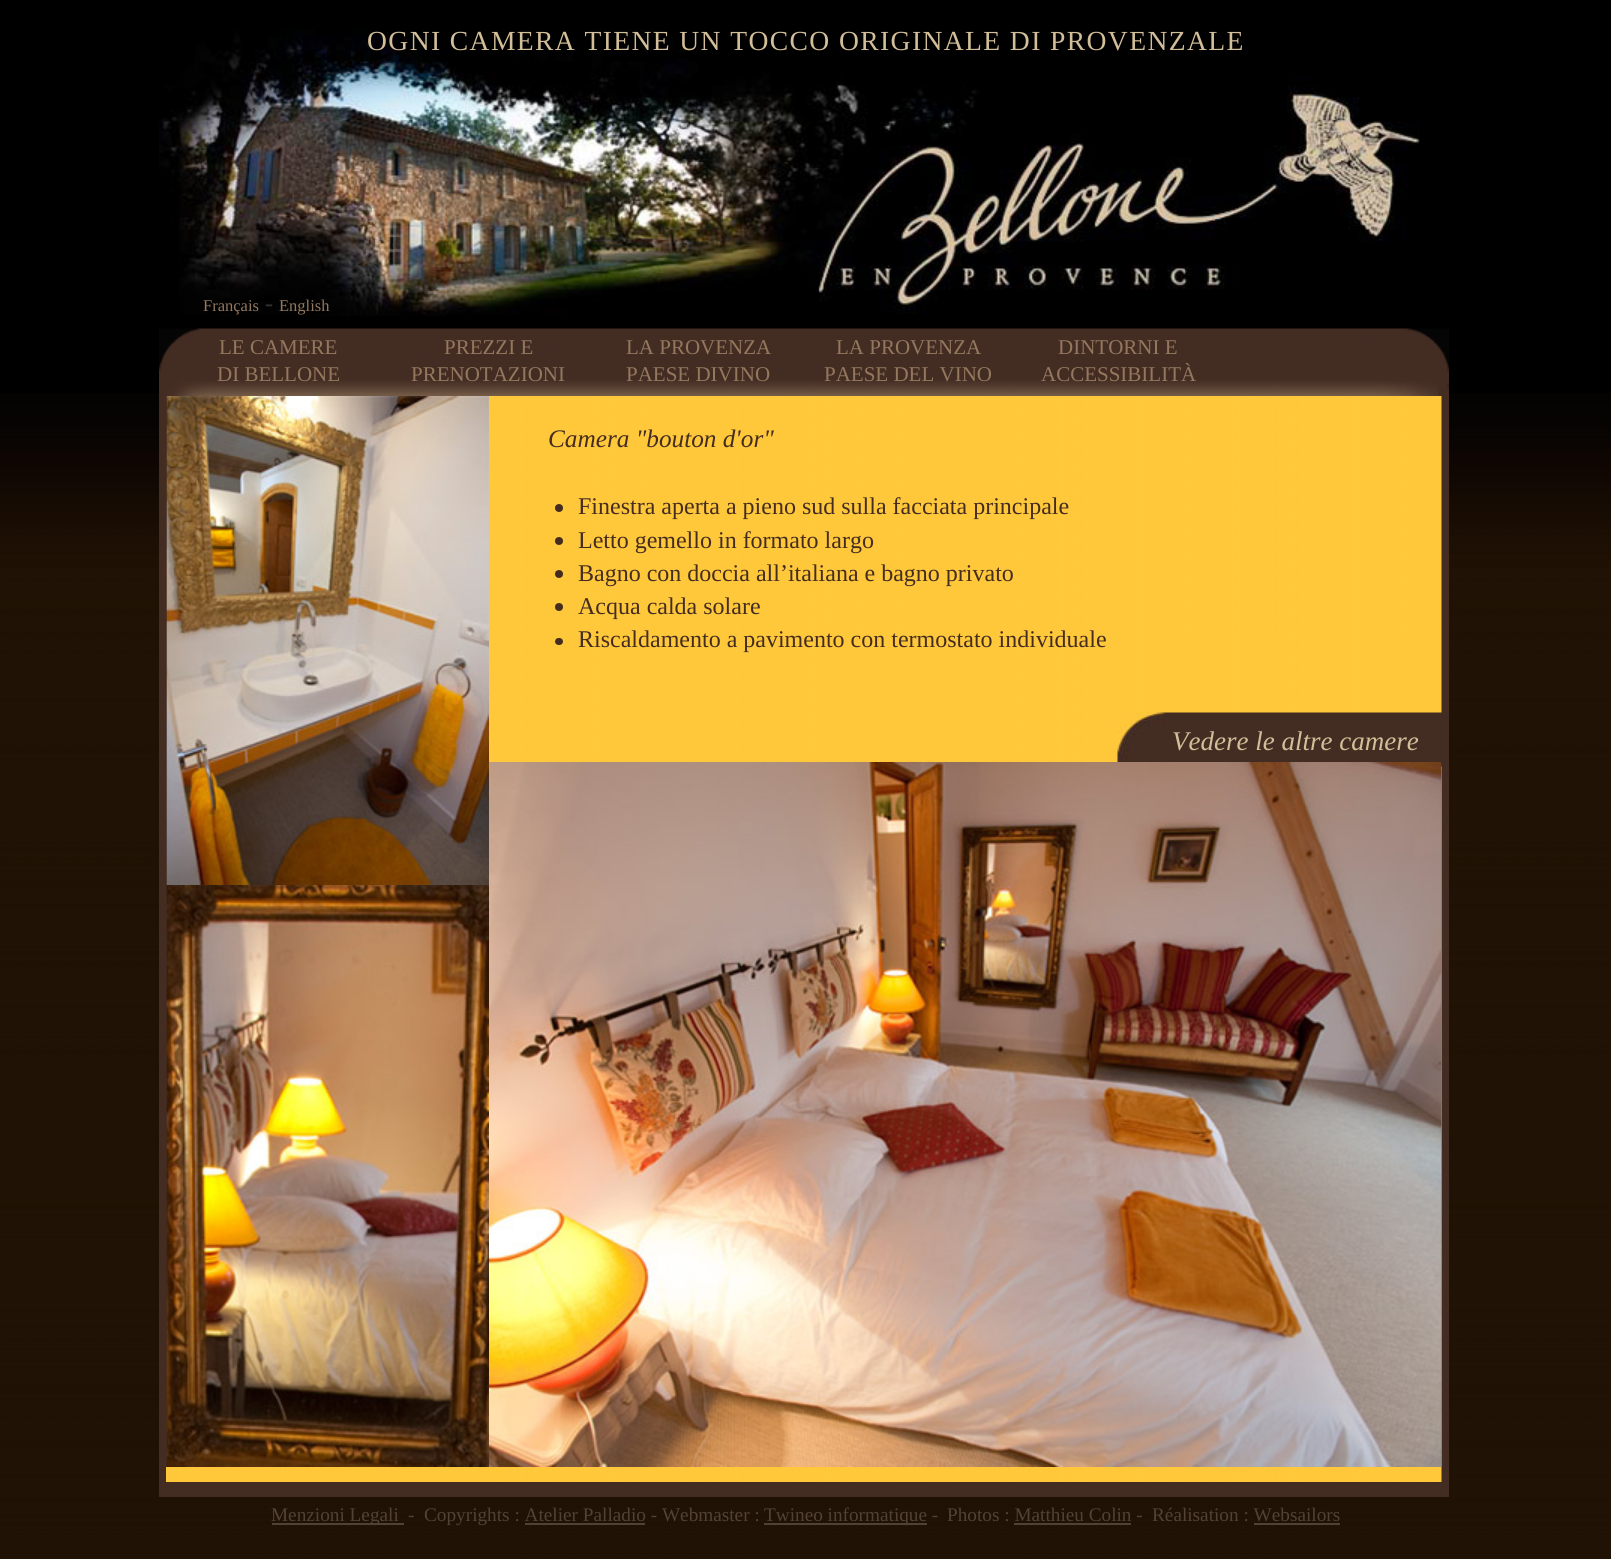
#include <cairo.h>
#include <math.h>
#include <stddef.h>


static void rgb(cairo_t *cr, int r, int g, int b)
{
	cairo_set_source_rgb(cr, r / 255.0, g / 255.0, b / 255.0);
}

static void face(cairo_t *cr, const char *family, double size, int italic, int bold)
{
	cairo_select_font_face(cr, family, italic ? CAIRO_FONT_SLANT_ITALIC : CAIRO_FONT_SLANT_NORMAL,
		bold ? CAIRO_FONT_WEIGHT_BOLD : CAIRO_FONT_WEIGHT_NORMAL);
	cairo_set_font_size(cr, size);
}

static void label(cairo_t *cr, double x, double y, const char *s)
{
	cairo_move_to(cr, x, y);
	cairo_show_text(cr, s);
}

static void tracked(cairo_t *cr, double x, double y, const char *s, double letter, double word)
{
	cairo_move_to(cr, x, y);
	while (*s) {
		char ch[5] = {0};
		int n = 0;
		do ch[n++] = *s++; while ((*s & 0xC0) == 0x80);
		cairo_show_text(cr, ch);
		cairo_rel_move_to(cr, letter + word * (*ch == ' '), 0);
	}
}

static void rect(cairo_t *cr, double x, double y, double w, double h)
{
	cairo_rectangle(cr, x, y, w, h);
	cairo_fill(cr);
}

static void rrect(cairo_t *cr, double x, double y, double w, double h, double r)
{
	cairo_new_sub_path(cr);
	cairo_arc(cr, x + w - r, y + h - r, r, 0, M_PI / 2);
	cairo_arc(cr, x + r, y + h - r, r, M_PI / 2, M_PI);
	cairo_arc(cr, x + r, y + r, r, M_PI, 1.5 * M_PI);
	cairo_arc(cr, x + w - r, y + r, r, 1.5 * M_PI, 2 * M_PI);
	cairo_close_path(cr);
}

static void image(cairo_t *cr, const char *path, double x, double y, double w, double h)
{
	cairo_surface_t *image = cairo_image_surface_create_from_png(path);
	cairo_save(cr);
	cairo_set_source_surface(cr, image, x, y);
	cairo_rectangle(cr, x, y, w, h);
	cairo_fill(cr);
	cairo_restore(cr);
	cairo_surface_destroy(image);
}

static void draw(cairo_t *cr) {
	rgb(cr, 0, 0, 0);
	cairo_paint(cr);
	image(cr, "image0.png", 0, 393, 1611, 1166);
	image(cr, "image1.png", 159, 29, 1261, 287);
	face(cr, "Liberation Serif", 27.6, 0, 0);
	rgb(cr, 210, 190, 153);
	tracked(cr, 367, 50, "OGNI CAMERA TIENE UN TOCCO ORIGINALE DI PROVENZALE", 1.38, 0);
	face(cr, "Liberation Serif", 16.5, 0, 0);
	rgb(cr, 147, 120, 94);
	label(cr, 203, 311, "Français");
	face(cr, "Liberation Serif", 24, 0, 0);
	rgb(cr, 51, 51, 51);
	label(cr, 265, 311, "-");
	face(cr, "Liberation Serif", 16.5, 0, 0);
	rgb(cr, 147, 120, 94);
	label(cr, 279, 311, "English");
	image(cr, "image2.png", 159, 328, 1290, 68);
	face(cr, "Liberation Serif", 21, 0, 0);
	label(cr, 219, 354, "LE CAMERE");
	label(cr, 217, 381, "DI BELLONE");
	label(cr, 444, 354, "PREZZI E");
	label(cr, 411, 381, "PRENOTAZIONI");
	label(cr, 626, 354, "LA PROVENZA");
	label(cr, 626, 381, "PAESE DIVINO");
	label(cr, 836, 354, "LA PROVENZA");
	label(cr, 824, 381, "PAESE DEL VINO");
	label(cr, 1058, 354, "DINTORNI E");
	label(cr, 1041, 381, "ACCESSIBILITÀ");
	rgb(cr, 67, 44, 34);
	rect(cr, 159, 396, 8, 1086);
	image(cr, "image3.png", 166, 396, 323, 489);
	image(cr, "image4.png", 166, 885, 323, 582);
	rgb(cr, 255, 200, 58);
	rect(cr, 166, 1467, 323, 15);
	image(cr, "image5.png", 489, 396, 960, 1086);
	face(cr, "Liberation Serif", 25.25, 1, 0);
	rgb(cr, 69, 44, 32);
	label(cr, 548, 447, "Camera \"bouton d'or\"");
	cairo_new_path(cr);
	cairo_arc(cr, 559, 508, 4, 0, 2 * M_PI);
	cairo_fill(cr);
	face(cr, "Liberation Serif", 24, 0, 0);
	label(cr, 578, 514, "Finestra aperta a pieno sud sulla facciata principale");
	cairo_new_path(cr);
	cairo_arc(cr, 559, 541, 4, 0, 2 * M_PI);
	cairo_fill(cr);
	label(cr, 578, 548, "Letto gemello in formato largo");
	cairo_new_path(cr);
	cairo_arc(cr, 559, 574, 4, 0, 2 * M_PI);
	cairo_fill(cr);
	label(cr, 578, 581, "Bagno con doccia all’italiana e bagno privato");
	cairo_new_path(cr);
	cairo_arc(cr, 559, 607, 4, 0, 2 * M_PI);
	cairo_fill(cr);
	label(cr, 578, 614, "Acqua calda solare");
	rrect(cr, 555, 638, 8, 7, 3.5);
	cairo_fill(cr);
	label(cr, 578, 647, "Riscaldamento a pavimento con termostato individuale");
	image(cr, "image6.png", 1117, 712, 325, 55);
	face(cr, "Liberation Serif", 27, 1, 0);
	rgb(cr, 210, 190, 153);
	label(cr, 1172, 750, "Vedere le altre camere");
	image(cr, "image7.png", 489, 762, 953, 705);
	rgb(cr, 67, 44, 34);
	rect(cr, 159, 1482, 1290, 15);
	rgb(cr, 82, 65, 55);
	rect(cr, 272, 1523, 132, 2);
	face(cr, "Liberation Serif", 19.25, 0, 0);
	label(cr, 271, 1521, "Menzioni Legali");
	label(cr, 408, 1521, "-");
	label(cr, 424, 1521, "Copyrights : Atelier Palladio - Webmaster :");
	rect(cr, 764, 1523, 163, 2);
	label(cr, 764, 1521, "Twineo informatique -");
	label(cr, 947, 1521, "Photos : Matthieu Colin -");
	label(cr, 1152, 1521, "Réalisation : Websailors");
	rect(cr, 525, 1523, 120, 2);
	rect(cr, 1014, 1523, 117, 2);
	rect(cr, 1254, 1523, 86, 2);
}

int main(void) {
	cairo_surface_t *surface = cairo_image_surface_create(CAIRO_FORMAT_RGB24, 1611, 1559);
	cairo_t *cr = cairo_create(surface);
	cairo_font_options_t *options = cairo_font_options_create();
	cairo_font_options_set_hint_metrics(options, CAIRO_HINT_METRICS_OFF);
	cairo_font_options_set_hint_style(options, CAIRO_HINT_STYLE_NONE);
	cairo_set_font_options(cr, options);
	cairo_set_miter_limit(cr, 4);
	draw(cr);
	cairo_surface_write_to_png(surface, "render.png");
	cairo_font_options_destroy(options);
	cairo_destroy(cr);
	cairo_surface_destroy(surface);
	return 0;
}
